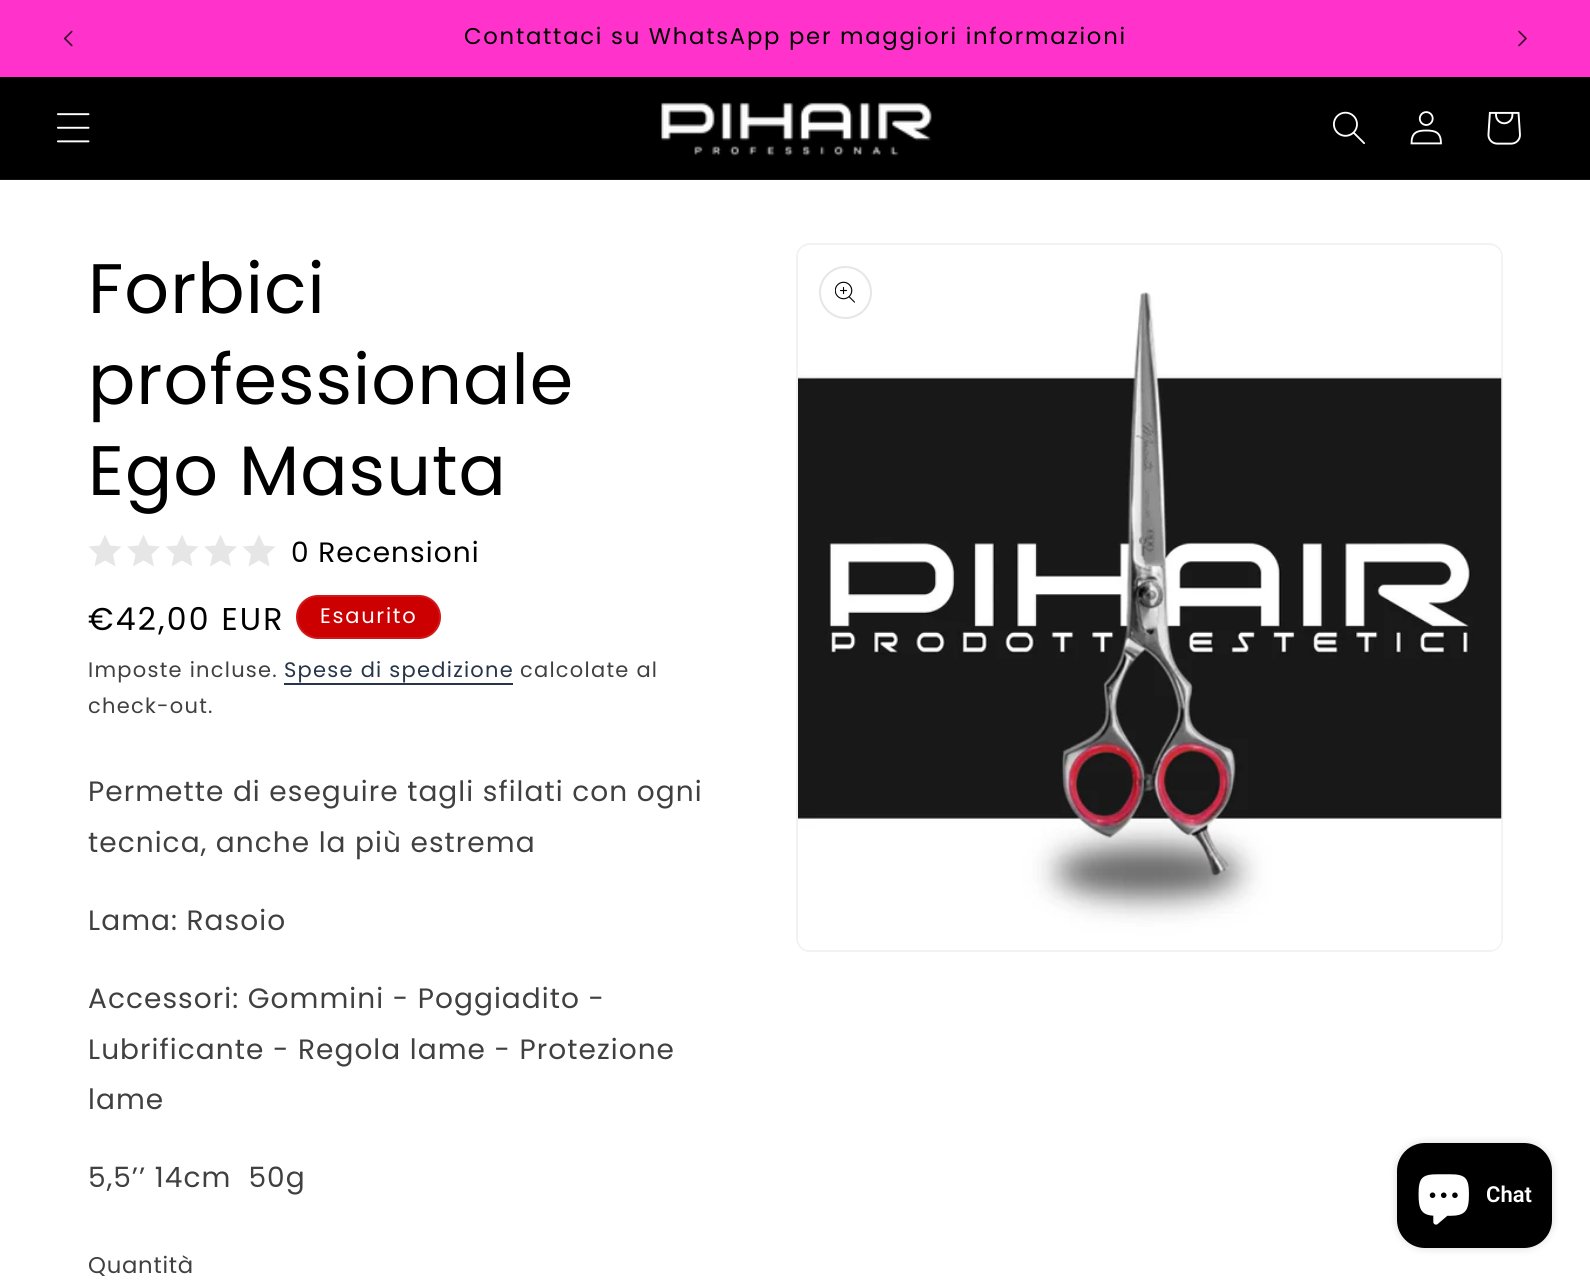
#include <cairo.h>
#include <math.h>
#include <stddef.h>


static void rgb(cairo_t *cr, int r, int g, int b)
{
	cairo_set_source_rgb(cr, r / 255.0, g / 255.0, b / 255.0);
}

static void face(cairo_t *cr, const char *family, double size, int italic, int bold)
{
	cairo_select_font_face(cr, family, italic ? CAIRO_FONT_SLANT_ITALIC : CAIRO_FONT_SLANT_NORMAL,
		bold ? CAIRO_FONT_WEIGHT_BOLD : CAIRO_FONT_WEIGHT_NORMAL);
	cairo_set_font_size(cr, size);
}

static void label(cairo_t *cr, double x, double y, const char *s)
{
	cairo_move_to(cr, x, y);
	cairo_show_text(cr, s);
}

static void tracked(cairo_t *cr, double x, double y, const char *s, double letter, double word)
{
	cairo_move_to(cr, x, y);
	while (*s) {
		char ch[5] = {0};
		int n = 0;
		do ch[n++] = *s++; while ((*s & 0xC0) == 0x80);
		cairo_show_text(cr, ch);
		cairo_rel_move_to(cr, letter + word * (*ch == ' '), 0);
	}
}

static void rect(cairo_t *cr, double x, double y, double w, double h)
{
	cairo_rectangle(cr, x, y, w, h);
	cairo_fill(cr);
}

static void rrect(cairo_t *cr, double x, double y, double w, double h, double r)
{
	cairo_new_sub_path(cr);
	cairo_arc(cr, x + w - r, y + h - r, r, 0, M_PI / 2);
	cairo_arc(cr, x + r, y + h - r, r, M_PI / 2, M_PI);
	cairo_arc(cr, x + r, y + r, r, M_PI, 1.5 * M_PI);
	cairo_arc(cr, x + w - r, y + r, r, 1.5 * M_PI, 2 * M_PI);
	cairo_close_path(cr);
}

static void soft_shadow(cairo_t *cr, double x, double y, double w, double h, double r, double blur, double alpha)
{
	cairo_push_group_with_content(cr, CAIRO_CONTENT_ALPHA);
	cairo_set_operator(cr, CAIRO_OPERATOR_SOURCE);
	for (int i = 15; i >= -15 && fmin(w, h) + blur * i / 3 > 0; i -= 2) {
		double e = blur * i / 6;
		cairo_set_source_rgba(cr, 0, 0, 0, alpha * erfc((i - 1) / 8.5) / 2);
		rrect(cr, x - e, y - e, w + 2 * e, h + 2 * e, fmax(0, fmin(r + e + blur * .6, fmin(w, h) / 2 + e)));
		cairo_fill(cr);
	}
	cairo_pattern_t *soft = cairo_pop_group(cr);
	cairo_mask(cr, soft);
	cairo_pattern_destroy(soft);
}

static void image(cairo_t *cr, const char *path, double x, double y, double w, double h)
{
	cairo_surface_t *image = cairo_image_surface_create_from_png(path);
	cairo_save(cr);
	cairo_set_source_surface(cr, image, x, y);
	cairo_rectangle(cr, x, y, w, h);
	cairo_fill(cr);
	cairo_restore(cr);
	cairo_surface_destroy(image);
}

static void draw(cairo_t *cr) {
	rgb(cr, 255, 255, 255);
	cairo_paint(cr);
	rgb(cr, 255, 51, 204);
	rect(cr, 0, 0, 1590, 77);
	image(cr, "image0.png", 63, 30, 10, 17);
	face(cr, "Poppins", 22.75, 0, 0);
	rgb(cr, 0, 0, 0);
	tracked(cr, 464, 44, "Contattaci su WhatsApp per maggiori informazioni", 1.75, 0);
	image(cr, "image1.png", 1518, 30, 9, 17);
	rect(cr, 0, 77, 1590, 102);
	rgb(cr, 20, 20, 20);
	rect(cr, 0, 179, 1590, 1);
	image(cr, "image2.png", 57, 113, 33, 30);
	image(cr, "image3.png", 661, 102, 271, 54);
	image(cr, "image4.png", 1333, 111, 32, 34);
	image(cr, "image5.png", 1410, 111, 32, 34);
	image(cr, "image6.png", 1487, 111, 34, 34);
	face(cr, "Poppins", 70, 0, 0);
	rgb(cr, 0, 0, 0);
	tracked(cr, 88, 313, "Forbici", 1.05, 0);
	tracked(cr, 88, 404, "professionale", 1.05, 0);
	tracked(cr, 88, 495, "Ego Masuta", 1.05, 0);
	rgb(cr, 230, 230, 230);
	cairo_new_path(cr);
	cairo_move_to(cr, 105, 534.5);
	cairo_line_to(cr, 110, 545.5);
	cairo_line_to(cr, 121.5, 546.5);
	cairo_line_to(cr, 113, 554.5);
	cairo_line_to(cr, 115.5, 566.5);
	cairo_line_to(cr, 105, 560.5);
	cairo_line_to(cr, 94.5, 566.5);
	cairo_line_to(cr, 97, 554.5);
	cairo_line_to(cr, 88.5, 546.5);
	cairo_line_to(cr, 100, 545.5);
	cairo_close_path(cr);
	cairo_fill(cr);
	cairo_new_path(cr);
	cairo_move_to(cr, 143.5, 534.5);
	cairo_line_to(cr, 148.5, 545.5);
	cairo_line_to(cr, 160, 546.5);
	cairo_line_to(cr, 151.5, 554.5);
	cairo_line_to(cr, 154, 566.5);
	cairo_line_to(cr, 143.5, 560.5);
	cairo_line_to(cr, 133, 566.5);
	cairo_line_to(cr, 135.5, 554.5);
	cairo_line_to(cr, 127, 546.5);
	cairo_line_to(cr, 138.5, 545.5);
	cairo_close_path(cr);
	cairo_fill(cr);
	cairo_new_path(cr);
	cairo_move_to(cr, 182, 534.5);
	cairo_line_to(cr, 187, 545.5);
	cairo_line_to(cr, 198.5, 546.5);
	cairo_line_to(cr, 190, 554.5);
	cairo_line_to(cr, 192.5, 566.5);
	cairo_line_to(cr, 182, 560.5);
	cairo_line_to(cr, 171.5, 566.5);
	cairo_line_to(cr, 174, 554.5);
	cairo_line_to(cr, 165.5, 546.5);
	cairo_line_to(cr, 177, 545.5);
	cairo_close_path(cr);
	cairo_fill(cr);
	cairo_new_path(cr);
	cairo_move_to(cr, 220.5, 534.5);
	cairo_line_to(cr, 225.5, 545.5);
	cairo_line_to(cr, 237, 546.5);
	cairo_line_to(cr, 228.5, 554.5);
	cairo_line_to(cr, 231, 566.5);
	cairo_line_to(cr, 220.5, 560.5);
	cairo_line_to(cr, 210, 566.5);
	cairo_line_to(cr, 212.5, 554.5);
	cairo_line_to(cr, 204, 546.5);
	cairo_line_to(cr, 215.5, 545.5);
	cairo_close_path(cr);
	cairo_fill(cr);
	cairo_new_path(cr);
	cairo_move_to(cr, 259, 534.5);
	cairo_line_to(cr, 264, 545.5);
	cairo_line_to(cr, 275.5, 546.5);
	cairo_line_to(cr, 267, 554.5);
	cairo_line_to(cr, 269.5, 566.5);
	cairo_line_to(cr, 259, 560.5);
	cairo_line_to(cr, 248.5, 566.5);
	cairo_line_to(cr, 251, 554.5);
	cairo_line_to(cr, 242.5, 546.5);
	cairo_line_to(cr, 254, 545.5);
	cairo_close_path(cr);
	cairo_fill(cr);
	face(cr, "Poppins", 28, 0, 0);
	rgb(cr, 0, 0, 0);
	tracked(cr, 291, 562, "0 Recensioni", 1.05, 0);
	face(cr, "Poppins", 31.5, 0, 0);
	tracked(cr, 88, 630, "€42,00 EUR", 2.25, 0);
	rgb(cr, 204, 0, 0);
	rrect(cr, 296, 595, 145, 44, 22);
	cairo_fill(cr);
	rrect(cr, 297, 596, 143, 42, 21);
	cairo_set_source_rgba(cr, 1, 1, 1, 0.1);
	cairo_stroke(cr);
	face(cr, "Poppins", 21, 0, 0);
	rgb(cr, 255, 255, 255);
	tracked(cr, 320, 623, "Esaurito", 1.75, 0);
	rgb(cr, 64, 64, 64);
	tracked(cr, 88, 677, "Imposte incluse.", 1.25, 0);
	rgb(cr, 38, 53, 72);
	tracked(cr, 284, 677, "Spese di spedizione", 1.25, 0);
	rect(cr, 284, 683, 229, 2);
	rgb(cr, 64, 64, 64);
	tracked(cr, 520, 677, "calcolate al", 1.25, 0);
	tracked(cr, 88, 713, "check-out.", 1.25, 0);
	face(cr, "Poppins", 28, 0, 0);
	tracked(cr, 88, 801, "Permette di eseguire tagli sfilati con ogni", 1.05, 0);
	tracked(cr, 88, 852, "tecnica, anche la più estrema", 1.05, 0);
	tracked(cr, 88, 930, "Lama: Rasoio", 1.05, 0);
	tracked(cr, 88, 1008, "Accessori: Gommini - Poggiadito -", 1.05, 0);
	tracked(cr, 88, 1059, "Lubrificante - Regola lame - Protezione", 1.05, 0);
	tracked(cr, 88, 1109, "lame", 1.05, 0);
	tracked(cr, 88, 1187, "5,5’’ 14cm  50g", 1.05, 0);
	face(cr, "Poppins", 22.75, 0, 0);
	tracked(cr, 88, 1273, "Quantità", 0.75, 0);
	rrect(cr, 797, 244, 705, 707, 13);
	rgb(cr, 242, 242, 242);
	cairo_stroke(cr);
	image(cr, "image7.png", 798, 247, 704, 703);
	cairo_arc(cr, 845.5, 292.5, 25.5, 0, 2 * M_PI);
	rgb(cr, 230, 230, 230);
	cairo_stroke(cr);
	image(cr, "image8.png", 835, 281, 20, 22);
	rgb(cr, 0, 0, 0);
	soft_shadow(cr, 1397, 1143, 155, 105, 28, 4.5, 0.15);
	rgb(cr, 0, 0, 0);
	rrect(cr, 1397, 1143, 155, 105, 28);
	cairo_fill(cr);
	image(cr, "image9.png", 1418, 1174, 51, 51);
	face(cr, "Roboto SemiBold", 22, 0, 0);
	rgb(cr, 255, 255, 255);
	label(cr, 1486, 1202, "Chat");
}

int main(void) {
	cairo_surface_t *surface = cairo_image_surface_create(CAIRO_FORMAT_RGB24, 1590, 1283);
	cairo_t *cr = cairo_create(surface);
	cairo_font_options_t *options = cairo_font_options_create();
	cairo_font_options_set_hint_metrics(options, CAIRO_HINT_METRICS_OFF);
	cairo_font_options_set_hint_style(options, CAIRO_HINT_STYLE_NONE);
	cairo_set_font_options(cr, options);
	cairo_set_miter_limit(cr, 4);
	draw(cr);
	cairo_surface_write_to_png(surface, "render.png");
	cairo_font_options_destroy(options);
	cairo_destroy(cr);
	cairo_surface_destroy(surface);
	return 0;
}
